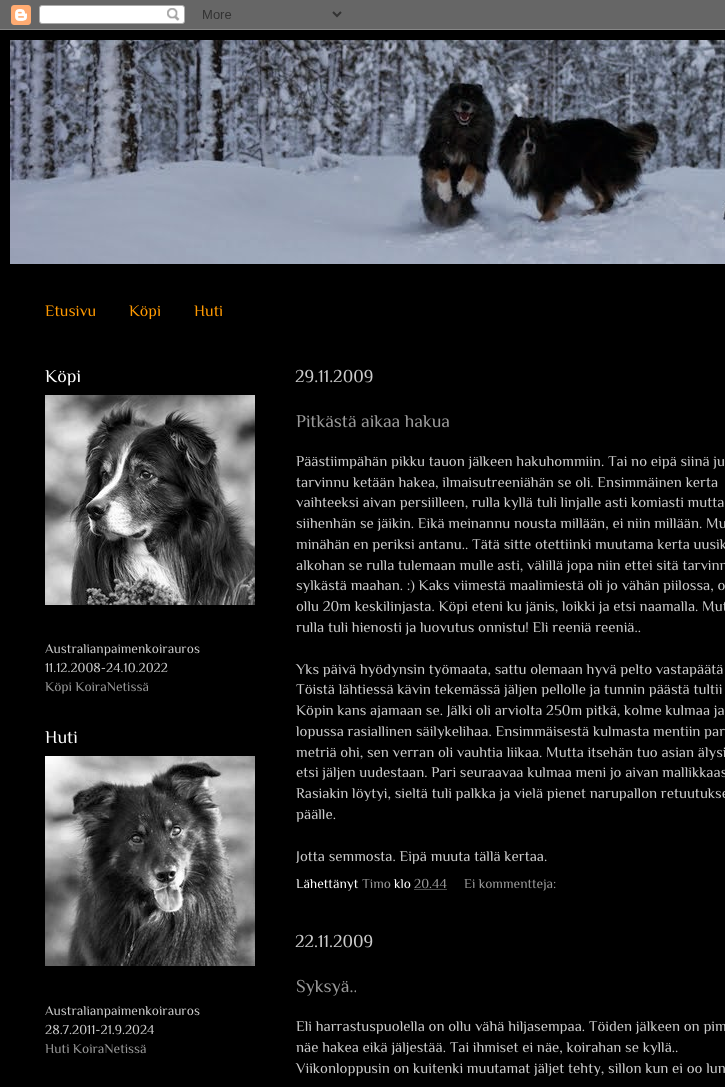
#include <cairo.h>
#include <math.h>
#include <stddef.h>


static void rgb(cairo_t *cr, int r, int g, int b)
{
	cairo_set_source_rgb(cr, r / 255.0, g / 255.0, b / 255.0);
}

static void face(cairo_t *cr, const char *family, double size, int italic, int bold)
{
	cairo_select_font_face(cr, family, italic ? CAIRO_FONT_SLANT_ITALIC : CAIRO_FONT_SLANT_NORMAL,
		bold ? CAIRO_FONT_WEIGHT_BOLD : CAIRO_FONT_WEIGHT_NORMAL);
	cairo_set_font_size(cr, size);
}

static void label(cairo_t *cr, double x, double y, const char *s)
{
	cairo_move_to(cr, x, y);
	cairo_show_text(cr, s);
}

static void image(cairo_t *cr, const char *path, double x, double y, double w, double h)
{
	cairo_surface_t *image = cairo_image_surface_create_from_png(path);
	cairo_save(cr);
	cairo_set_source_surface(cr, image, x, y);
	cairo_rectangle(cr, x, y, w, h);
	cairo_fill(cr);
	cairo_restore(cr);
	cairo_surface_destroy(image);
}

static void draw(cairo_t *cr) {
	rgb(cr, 0, 0, 0);
	cairo_paint(cr);
	image(cr, "image0.png", 0, 0, 725, 30);
	image(cr, "image1.png", 10, 40, 715, 224);
	face(cr, "Philosopher", 16, 0, 0);
	rgb(cr, 255, 153, 0);
	label(cr, 45, 316, "Etusivu");
	label(cr, 129, 316, "Köpi");
	label(cr, 194, 316, "Huti");
	face(cr, "Philosopher", 18, 0, 0);
	rgb(cr, 255, 255, 255);
	label(cr, 45, 382, "Köpi");
	image(cr, "image2.png", 45, 395, 210, 210);
	face(cr, "Philosopher", 13.5, 0, 0);
	rgb(cr, 204, 204, 204);
	label(cr, 45, 653, "Australianpaimenkoirauros");
	label(cr, 45, 672, "11.12.2008-24.10.2022");
	rgb(cr, 153, 153, 153);
	label(cr, 45, 691, "Köpi KoiraNetissä");
	face(cr, "Philosopher", 18, 0, 0);
	rgb(cr, 255, 255, 255);
	label(cr, 45, 743, "Huti");
	image(cr, "image3.png", 45, 756, 210, 210);
	face(cr, "Philosopher", 13.5, 0, 0);
	rgb(cr, 204, 204, 204);
	label(cr, 45, 1015, "Australianpaimenkoirauros");
	label(cr, 45, 1034, "28.7.2011-21.9.2024");
	rgb(cr, 153, 153, 153);
	label(cr, 45, 1053, "Huti KoiraNetissä");
	face(cr, "Philosopher", 18, 0, 0);
	rgb(cr, 204, 204, 204);
	label(cr, 295, 382, "29.11.2009");
	rgb(cr, 153, 153, 153);
	label(cr, 296, 427, "Pitkästä aikaa hakua");
	face(cr, "Philosopher", 14.85, 0, 0);
	rgb(cr, 204, 204, 204);
	label(cr, 296, 466, "Päästiimpähän pikku tauon jälkeen hakuhommiin. Tai no eipä siinä ju");
	label(cr, 296, 487, "tarvinnu ketään hakea, ilmaisutreeniähän se oli. Ensimmäinen kerta");
	label(cr, 296, 507, "vaihteeksi aivan persiilleen, rulla kyllä tuli linjalle asti komiasti mutta");
	label(cr, 296, 528, "siihenhän se jäikin. Eikä meinannu nousta millään, ei niin millään. Mu");
	label(cr, 296, 549, "minähän en periksi antanu.. Tätä sitte otettiinki muutama kerta uusik");
	label(cr, 296, 570, "alkohan se rulla tulemaan mulle asti, välillä jopa niin ettei sitä tarvinn");
	label(cr, 296, 590, "sylkästä maahan. :) Kaks viimestä maalimiestä oli jo vähän piilossa, o");
	label(cr, 296, 611, "ollu 20m keskilinjasta. Köpi eteni ku jänis, loikki ja etsi naamalla. Mut");
	label(cr, 296, 632, "rulla tuli hienosti ja luovutus onnistu! Eli reeniä reeniä..");
	label(cr, 296, 674, "Yks päivä hyödynsin työmaata, sattu olemaan hyvä pelto vastapäätä");
	label(cr, 296, 694, "Töistä lähtiessä kävin tekemässä jäljen pellolle ja tunnin päästä tultii");
	label(cr, 296, 715, "Köpin kans ajamaan se. Jälki oli arviolta 250m pitkä, kolme kulmaa ja");
	label(cr, 296, 736, "lopussa rasiallinen säilykelihaa. Ensimmäisestä kulmasta mentiin par");
	label(cr, 296, 757, "metriä ohi, sen verran oli vauhtia liikaa. Mutta itsehän tuo asian älysi");
	label(cr, 296, 777, "etsi jäljen uudestaan. Pari seuraavaa kulmaa meni jo aivan mallikkaas");
	label(cr, 296, 798, "Rasiakin löytyi, sieltä tuli palkka ja vielä pienet narupallon retuutukse");
	label(cr, 296, 819, "päälle.");
	label(cr, 296, 861, "Jotta semmosta. Eipä muuta tällä kertaa.");
	face(cr, "Philosopher", 13.5, 0, 0);
	rgb(cr, 255, 255, 255);
	label(cr, 296, 888, "Lähettänyt");
	rgb(cr, 153, 153, 153);
	label(cr, 362, 888, "Timo");
	rgb(cr, 255, 255, 255);
	label(cr, 394, 888, "klo");
	rgb(cr, 153, 153, 153);
	label(cr, 414, 888, "20.44");
	cairo_new_path(cr);
	cairo_move_to(cr, 414.5, 889.5);
	cairo_line_to(cr, 447, 889.5);
	cairo_set_line_width(cr, 1);
	cairo_set_dash(cr, (double[]){1, 1}, 2, 0);
	cairo_stroke(cr);
	label(cr, 464, 888, "Ei kommentteja:");
	face(cr, "Philosopher", 18, 0, 0);
	rgb(cr, 204, 204, 204);
	label(cr, 295, 947, "22.11.2009");
	rgb(cr, 153, 153, 153);
	label(cr, 296, 992, "Syksyä..");
	face(cr, "Philosopher", 14.85, 0, 0);
	rgb(cr, 204, 204, 204);
	label(cr, 296, 1031, "Eli harrastuspuolella on ollu vähä hiljasempaa. Töiden jälkeen on pim");
	label(cr, 296, 1052, "näe hakea eikä jäljestää. Tai ihmiset ei näe, koirahan se kyllä..");
	label(cr, 296, 1073, "Viikonloppusin on kuitenki muutamat jäljet tehty, sillon kun ei oo lun");
}

int main(void) {
	cairo_surface_t *surface = cairo_image_surface_create(CAIRO_FORMAT_RGB24, 725, 1087);
	cairo_t *cr = cairo_create(surface);
	cairo_font_options_t *options = cairo_font_options_create();
	cairo_font_options_set_hint_metrics(options, CAIRO_HINT_METRICS_OFF);
	cairo_font_options_set_hint_style(options, CAIRO_HINT_STYLE_NONE);
	cairo_set_font_options(cr, options);
	cairo_set_miter_limit(cr, 4);
	draw(cr);
	cairo_surface_write_to_png(surface, "render.png");
	cairo_font_options_destroy(options);
	cairo_destroy(cr);
	cairo_surface_destroy(surface);
	return 0;
}
